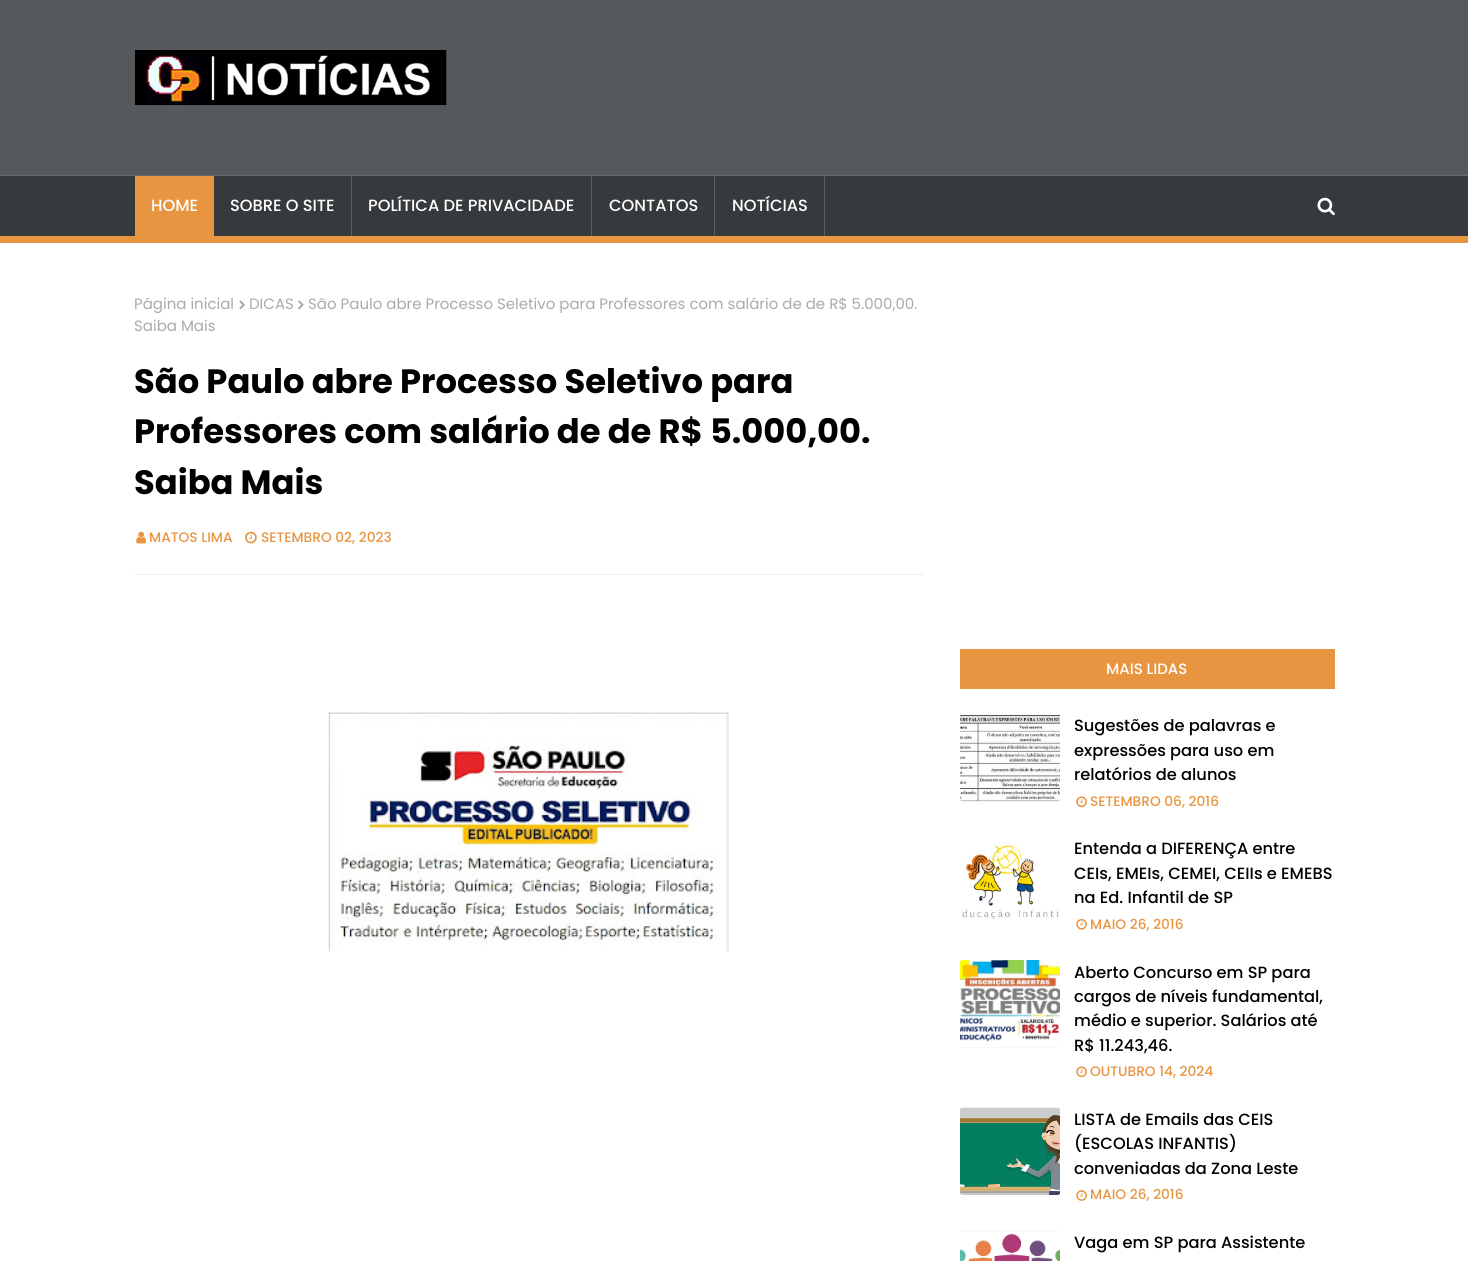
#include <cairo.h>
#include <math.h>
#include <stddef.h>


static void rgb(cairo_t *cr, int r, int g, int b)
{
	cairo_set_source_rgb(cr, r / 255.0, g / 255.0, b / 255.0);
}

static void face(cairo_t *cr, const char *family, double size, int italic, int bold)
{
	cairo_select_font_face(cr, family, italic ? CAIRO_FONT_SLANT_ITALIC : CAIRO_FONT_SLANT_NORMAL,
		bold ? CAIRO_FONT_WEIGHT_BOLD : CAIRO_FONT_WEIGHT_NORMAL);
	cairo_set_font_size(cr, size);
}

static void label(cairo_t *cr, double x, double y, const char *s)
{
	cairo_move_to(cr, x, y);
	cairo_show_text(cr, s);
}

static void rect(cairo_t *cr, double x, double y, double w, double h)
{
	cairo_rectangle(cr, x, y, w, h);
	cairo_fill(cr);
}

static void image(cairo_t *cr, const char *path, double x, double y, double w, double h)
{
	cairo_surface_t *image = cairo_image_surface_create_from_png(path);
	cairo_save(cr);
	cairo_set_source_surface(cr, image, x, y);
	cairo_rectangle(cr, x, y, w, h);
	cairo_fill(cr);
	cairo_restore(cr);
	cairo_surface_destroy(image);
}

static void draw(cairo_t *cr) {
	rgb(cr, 255, 255, 255);
	cairo_paint(cr);
	rgb(cr, 85, 89, 92);
	rect(cr, 0, 0, 1468, 175);
	image(cr, "image0.png", 135, 50, 312, 55);
	rgb(cr, 55, 58, 60);
	rect(cr, 0, 176, 1468, 60);
	rgb(cr, 102, 107, 110);
	rect(cr, 0, 175, 1468, 1);
	rgb(cr, 231, 149, 65);
	rect(cr, 0, 236, 1468, 7);
	rect(cr, 135, 176, 79, 60);
	face(cr, "Poppins Medium", 16.25, 0, 0);
	rgb(cr, 255, 255, 255);
	label(cr, 151, 211, "HOME");
	rgb(cr, 89, 93, 96);
	rect(cr, 351, 176, 1, 60);
	rgb(cr, 255, 255, 255);
	label(cr, 230, 211, "SOBRE O SITE");
	rgb(cr, 89, 93, 96);
	rect(cr, 591, 176, 1, 60);
	rgb(cr, 255, 255, 255);
	label(cr, 368, 211, "POLÍTICA DE PRIVACIDADE");
	rgb(cr, 89, 93, 96);
	rect(cr, 714, 176, 1, 60);
	rgb(cr, 255, 255, 255);
	label(cr, 609, 211, "CONTATOS");
	rgb(cr, 89, 93, 96);
	rect(cr, 824, 176, 1, 60);
	rgb(cr, 255, 255, 255);
	label(cr, 732, 211, "NOTÍCIAS");
	image(cr, "image1.png", 1317, 197, 18, 19);
	face(cr, "Poppins", 15, 0, 0);
	rgb(cr, 170, 170, 170);
	label(cr, 134, 309, "Página inicial");
	image(cr, "image2.png", 239, 300, 6, 10);
	label(cr, 249, 309, "DICAS");
	image(cr, "image3.png", 298, 300, 6, 10);
	label(cr, 308, 309, "São Paulo abre Processo Seletivo para Professores com salário de de R$ 5.000,00.");
	label(cr, 134, 331, "Saiba Mais");
	face(cr, "Poppins", 33.75, 0, 1);
	rgb(cr, 0, 0, 0);
	label(cr, 134, 393, "São Paulo abre Processo Seletivo para");
	label(cr, 134, 443, "Professores com salário de de R$ 5.000,00.");
	label(cr, 134, 494, "Saiba Mais");
	image(cr, "image4.png", 136, 531, 11, 13);
	face(cr, "Poppins Medium", 13.75, 0, 0);
	rgb(cr, 231, 149, 65);
	label(cr, 149, 542, "MATOS LIMA");
	image(cr, "image5.png", 245, 531, 12, 13);
	label(cr, 261, 542, "SETEMBRO 02, 2023");
	rgb(cr, 238, 238, 238);
	rect(cr, 135, 574, 788, 1);
	image(cr, "image6.png", 328, 712, 401, 240);
	rgb(cr, 231, 149, 65);
	rect(cr, 960, 649, 375, 40);
	face(cr, "Poppins Medium", 15, 0, 0);
	rgb(cr, 255, 255, 255);
	label(cr, 1106, 674, "MAIS LIDAS");
	rgb(cr, 248, 248, 248);
	rect(cr, 960, 714, 100, 87);
	image(cr, "image7.png", 960, 715, 100, 87);
	face(cr, "Poppins Medium", 16.25, 0, 0);
	rgb(cr, 0, 0, 0);
	label(cr, 1074, 731, "Sugestões de palavras e");
	label(cr, 1074, 756, "expressões para uso em");
	label(cr, 1074, 780, "relatórios de alunos");
	image(cr, "image8.png", 1076, 796, 11, 12);
	face(cr, "Poppins Medium", 13.75, 0, 0);
	rgb(cr, 231, 149, 65);
	label(cr, 1090, 806, "SETEMBRO 06, 2016");
	rgb(cr, 248, 248, 248);
	rect(cr, 960, 838, 100, 87);
	image(cr, "image9.png", 960, 838, 100, 87);
	face(cr, "Poppins Medium", 16.25, 0, 0);
	rgb(cr, 0, 0, 0);
	label(cr, 1074, 854, "Entenda a DIFERENÇA entre");
	label(cr, 1074, 879, "CEIs, EMEIs, CEMEI, CEIIs e EMEBS");
	label(cr, 1074, 903, "na Ed. Infantil de SP");
	image(cr, "image10.png", 1076, 918, 11, 12);
	face(cr, "Poppins Medium", 13.75, 0, 0);
	rgb(cr, 231, 149, 65);
	label(cr, 1090, 929, "MAIO 26, 2016");
	rgb(cr, 248, 248, 248);
	rect(cr, 960, 960, 100, 88);
	image(cr, "image11.png", 960, 960, 100, 87);
	face(cr, "Poppins Medium", 16.25, 0, 0);
	rgb(cr, 0, 0, 0);
	label(cr, 1074, 978, "Aberto Concurso em SP para");
	label(cr, 1074, 1002, "cargos de níveis fundamental,");
	label(cr, 1074, 1026, "médio e superior. Salários até");
	label(cr, 1074, 1051, "R$ 11.243,46.");
	image(cr, "image8.png", 1076, 1066, 11, 12);
	face(cr, "Poppins Medium", 13.75, 0, 0);
	rgb(cr, 231, 149, 65);
	label(cr, 1090, 1076, "OUTUBRO 14, 2024");
	rgb(cr, 248, 248, 248);
	rect(cr, 960, 1108, 100, 87);
	image(cr, "image12.png", 960, 1107, 100, 88);
	face(cr, "Poppins Medium", 16.25, 0, 0);
	rgb(cr, 0, 0, 0);
	label(cr, 1074, 1125, "LISTA de Emails das CEIS");
	label(cr, 1074, 1149, "(ESCOLAS INFANTIS)");
	label(cr, 1074, 1174, "conveniadas da Zona Leste");
	image(cr, "image13.png", 1076, 1190, 11, 11);
	face(cr, "Poppins Medium", 13.75, 0, 0);
	rgb(cr, 231, 149, 65);
	label(cr, 1090, 1199, "MAIO 26, 2016");
	rgb(cr, 248, 248, 248);
	rect(cr, 960, 1231, 100, 3);
	image(cr, "image14.png", 960, 1232, 100, 29);
	face(cr, "Poppins Medium", 16.25, 0, 0);
	rgb(cr, 0, 0, 0);
	label(cr, 1074, 1248, "Vaga em SP para Assistente");
}

int main(void) {
	cairo_surface_t *surface = cairo_image_surface_create(CAIRO_FORMAT_RGB24, 1468, 1261);
	cairo_t *cr = cairo_create(surface);
	cairo_font_options_t *options = cairo_font_options_create();
	cairo_font_options_set_hint_metrics(options, CAIRO_HINT_METRICS_OFF);
	cairo_font_options_set_hint_style(options, CAIRO_HINT_STYLE_NONE);
	cairo_set_font_options(cr, options);
	cairo_set_miter_limit(cr, 4);
	draw(cr);
	cairo_surface_write_to_png(surface, "render.png");
	cairo_font_options_destroy(options);
	cairo_destroy(cr);
	cairo_surface_destroy(surface);
	return 0;
}
